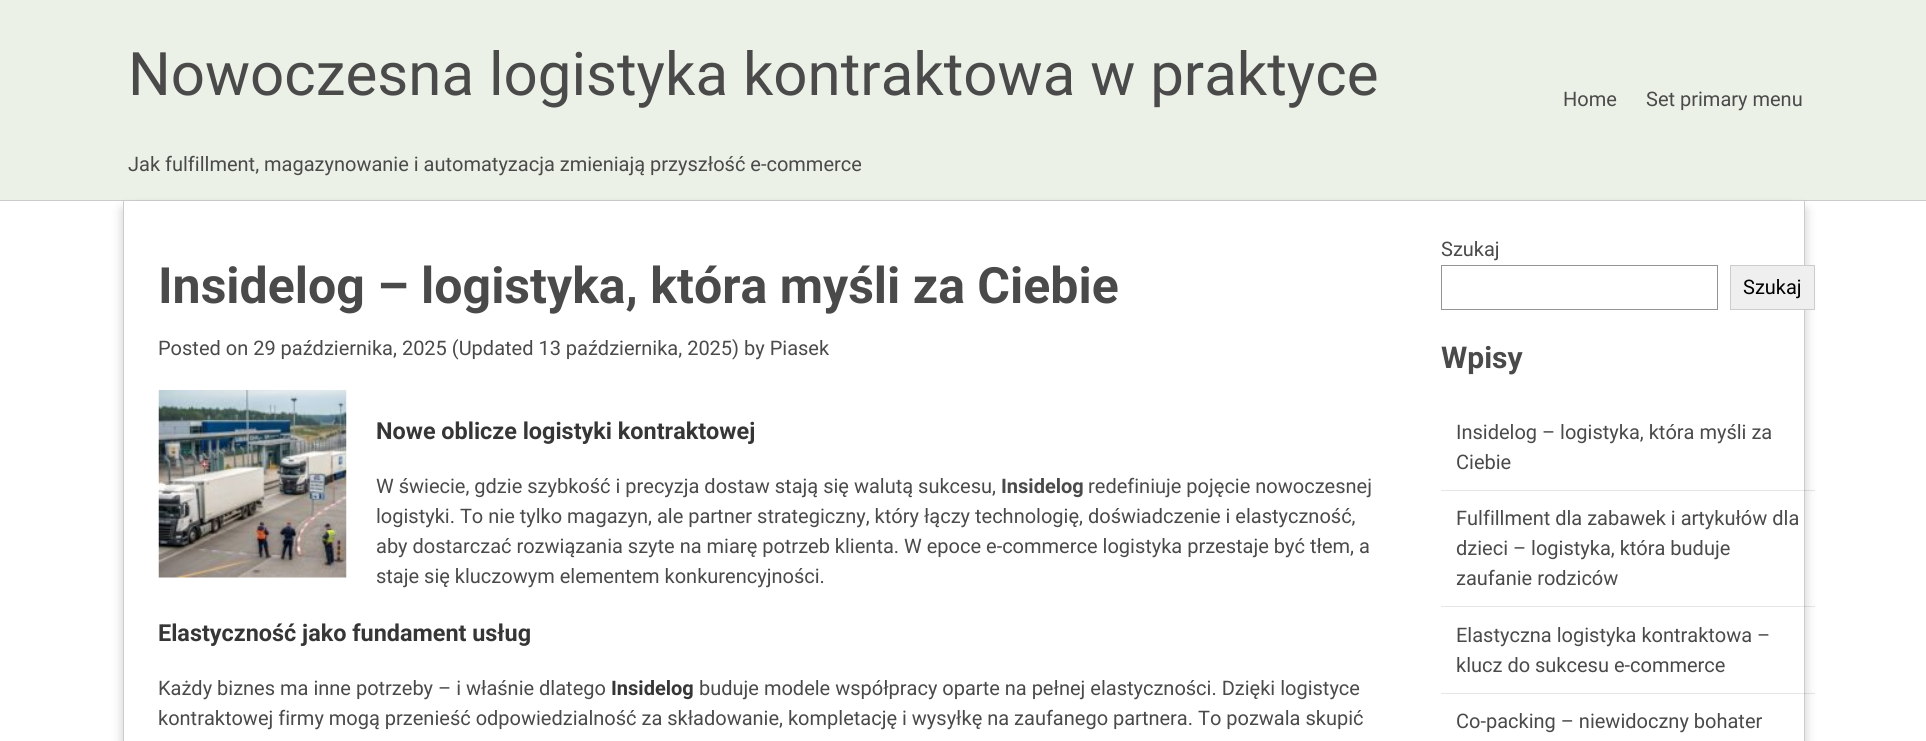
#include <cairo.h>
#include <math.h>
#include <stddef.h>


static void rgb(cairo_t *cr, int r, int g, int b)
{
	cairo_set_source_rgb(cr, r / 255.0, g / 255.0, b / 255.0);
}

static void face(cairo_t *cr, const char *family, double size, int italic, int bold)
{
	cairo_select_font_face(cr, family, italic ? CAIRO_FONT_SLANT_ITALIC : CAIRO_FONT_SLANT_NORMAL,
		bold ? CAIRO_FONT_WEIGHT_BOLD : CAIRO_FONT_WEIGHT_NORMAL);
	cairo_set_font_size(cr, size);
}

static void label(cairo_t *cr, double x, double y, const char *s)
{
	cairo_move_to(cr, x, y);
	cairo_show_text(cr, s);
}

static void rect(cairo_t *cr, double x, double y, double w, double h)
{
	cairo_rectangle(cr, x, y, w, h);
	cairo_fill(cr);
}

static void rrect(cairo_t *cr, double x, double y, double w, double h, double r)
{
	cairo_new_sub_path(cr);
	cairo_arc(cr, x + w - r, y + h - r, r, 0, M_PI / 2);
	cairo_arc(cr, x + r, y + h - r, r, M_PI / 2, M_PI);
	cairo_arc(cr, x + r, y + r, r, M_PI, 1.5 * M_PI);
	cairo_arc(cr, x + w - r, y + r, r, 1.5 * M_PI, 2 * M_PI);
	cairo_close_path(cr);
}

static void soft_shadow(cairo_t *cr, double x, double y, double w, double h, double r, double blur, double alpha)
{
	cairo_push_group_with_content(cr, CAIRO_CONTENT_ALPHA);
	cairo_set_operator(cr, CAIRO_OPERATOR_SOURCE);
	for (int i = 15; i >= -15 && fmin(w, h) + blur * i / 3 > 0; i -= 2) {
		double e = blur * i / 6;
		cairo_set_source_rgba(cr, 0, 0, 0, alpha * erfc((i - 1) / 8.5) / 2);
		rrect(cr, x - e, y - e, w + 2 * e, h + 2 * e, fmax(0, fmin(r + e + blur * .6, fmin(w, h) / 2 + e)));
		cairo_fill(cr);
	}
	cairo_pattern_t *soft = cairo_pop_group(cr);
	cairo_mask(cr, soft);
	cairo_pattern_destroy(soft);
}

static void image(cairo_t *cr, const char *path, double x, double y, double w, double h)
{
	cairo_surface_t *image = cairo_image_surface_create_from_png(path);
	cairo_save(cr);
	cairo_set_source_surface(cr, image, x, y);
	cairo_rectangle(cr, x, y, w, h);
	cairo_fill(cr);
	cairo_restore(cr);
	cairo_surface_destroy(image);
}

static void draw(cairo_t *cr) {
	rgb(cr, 255, 255, 255);
	cairo_paint(cr);
	rgb(cr, 235, 241, 231);
	rect(cr, 0, 0, 1926, 200);
	rgb(cr, 204, 204, 204);
	rect(cr, 0, 200, 1926, 1);
	face(cr, "Roboto", 60, 0, 0);
	rgb(cr, 74, 74, 74);
	label(cr, 128, 95, "Nowoczesna logistyka kontraktowa w praktyce");
	face(cr, "Roboto", 20, 0, 0);
	label(cr, 128, 171, "Jak fulfillment, magazynowanie i automatyzacja zmieniają przyszłość e-commerce");
	label(cr, 1563, 106, "Home");
	label(cr, 1646, 106, "Set primary menu");
	rgb(cr, 1, 1, 1);
	soft_shadow(cr, 124, 210, 1665, 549, 0, 6, 0.25);
	soft_shadow(cr, 139, 210, 1665, 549, 0, 6, 0.25);
	rgb(cr, 255, 255, 255);
	rect(cr, 124, 201, 1680, 540);
	rgb(cr, 204, 204, 204);
	rect(cr, 1804, 201, 1, 540);
	rect(cr, 123, 201, 1, 540);
	face(cr, "Roboto", 50, 0, 1);
	rgb(cr, 74, 74, 74);
	label(cr, 158, 303, "Insidelog – logistyka, która myśli za Ciebie");
	face(cr, "Roboto", 20, 0, 0);
	label(cr, 158, 355, "Posted on 29 października, 2025 (Updated 13 października, 2025) by Piasek");
	image(cr, "image0.png", 158, 390, 189, 188);
	face(cr, "Roboto", 23.4, 0, 1);
	rgb(cr, 54, 54, 54);
	label(cr, 376, 439, "Nowe oblicze logistyki kontraktowej");
	face(cr, "Roboto", 20, 0, 0);
	rgb(cr, 74, 74, 74);
	label(cr, 376, 493, "W świecie, gdzie szybkość i precyzja dostaw stają się walutą sukcesu,");
	face(cr, "Roboto", 20, 0, 1);
	label(cr, 1001, 493, "Insidelog");
	face(cr, "Roboto", 20, 0, 0);
	label(cr, 1088, 493, "redefiniuje pojęcie nowoczesnej");
	label(cr, 376, 523, "logistyki. To nie tylko magazyn, ale partner strategiczny, który łączy technologię, doświadczenie i elastyczność,");
	label(cr, 376, 553, "aby dostarczać rozwiązania szyte na miarę potrzeb klienta. W epoce e-commerce logistyka przestaje być tłem, a");
	label(cr, 376, 583, "staje się kluczowym elementem konkurencyjności.");
	face(cr, "Roboto", 23.4, 0, 1);
	rgb(cr, 54, 54, 54);
	label(cr, 158, 641, "Elastyczność jako fundament usług");
	face(cr, "Roboto", 20, 0, 0);
	rgb(cr, 74, 74, 74);
	label(cr, 158, 695, "Każdy biznes ma inne potrzeby – i właśnie dlatego");
	face(cr, "Roboto", 20, 0, 1);
	rgb(cr, 54, 54, 54);
	label(cr, 611, 695, "Insidelog");
	face(cr, "Roboto", 20, 0, 0);
	rgb(cr, 74, 74, 74);
	label(cr, 699, 695, "buduje modele współpracy oparte na pełnej elastyczności. Dzięki logistyce");
	label(cr, 158, 725, "kontraktowej firmy mogą przenieść odpowiedzialność za składowanie, kompletację i wysyłkę na zaufanego partnera. To pozwala skupić");
	label(cr, 1441, 256, "Szukaj");
	cairo_rectangle(cr, 1441.5, 265.5, 276, 44);
	rgb(cr, 148, 148, 148);
	cairo_set_line_width(cr, 1);
	cairo_stroke(cr);
	rgb(cr, 239, 239, 239);
	cairo_rectangle(cr, 1730.5, 265.5, 84, 44);
	cairo_fill_preserve(cr);
	rgb(cr, 204, 204, 204);
	cairo_stroke(cr);
	rgb(cr, 0, 0, 0);
	label(cr, 1743, 294, "Szukaj");
	face(cr, "Roboto", 30, 0, 1);
	rgb(cr, 74, 74, 74);
	label(cr, 1441, 368, "Wpisy");
	face(cr, "Roboto", 20, 0, 0);
	label(cr, 1456, 439, "Insidelog – logistyka, która myśli za");
	label(cr, 1456, 469, "Ciebie");
	cairo_set_source_rgba(cr, 0, 0, 0, 0.1);
	rect(cr, 1441, 490, 374, 1);
	rgb(cr, 74, 74, 74);
	label(cr, 1456, 525, "Fulfillment dla zabawek i artykułów dla");
	label(cr, 1456, 555, "dzieci – logistyka, która buduje");
	label(cr, 1456, 585, "zaufanie rodziców");
	cairo_set_source_rgba(cr, 0, 0, 0, 0.1);
	rect(cr, 1441, 606, 374, 1);
	rgb(cr, 74, 74, 74);
	label(cr, 1456, 642, "Elastyczna logistyka kontraktowa –");
	label(cr, 1456, 672, "klucz do sukcesu e-commerce");
	cairo_set_source_rgba(cr, 0, 0, 0, 0.1);
	rect(cr, 1441, 693, 374, 1);
	rgb(cr, 74, 74, 74);
	label(cr, 1456, 728, "Co-packing – niewidoczny bohater");
}

int main(void) {
	cairo_surface_t *surface = cairo_image_surface_create(CAIRO_FORMAT_RGB24, 1926, 741);
	cairo_t *cr = cairo_create(surface);
	cairo_font_options_t *options = cairo_font_options_create();
	cairo_font_options_set_hint_metrics(options, CAIRO_HINT_METRICS_OFF);
	cairo_font_options_set_hint_style(options, CAIRO_HINT_STYLE_NONE);
	cairo_set_font_options(cr, options);
	cairo_set_miter_limit(cr, 4);
	draw(cr);
	cairo_surface_write_to_png(surface, "render.png");
	cairo_font_options_destroy(options);
	cairo_destroy(cr);
	cairo_surface_destroy(surface);
	return 0;
}
